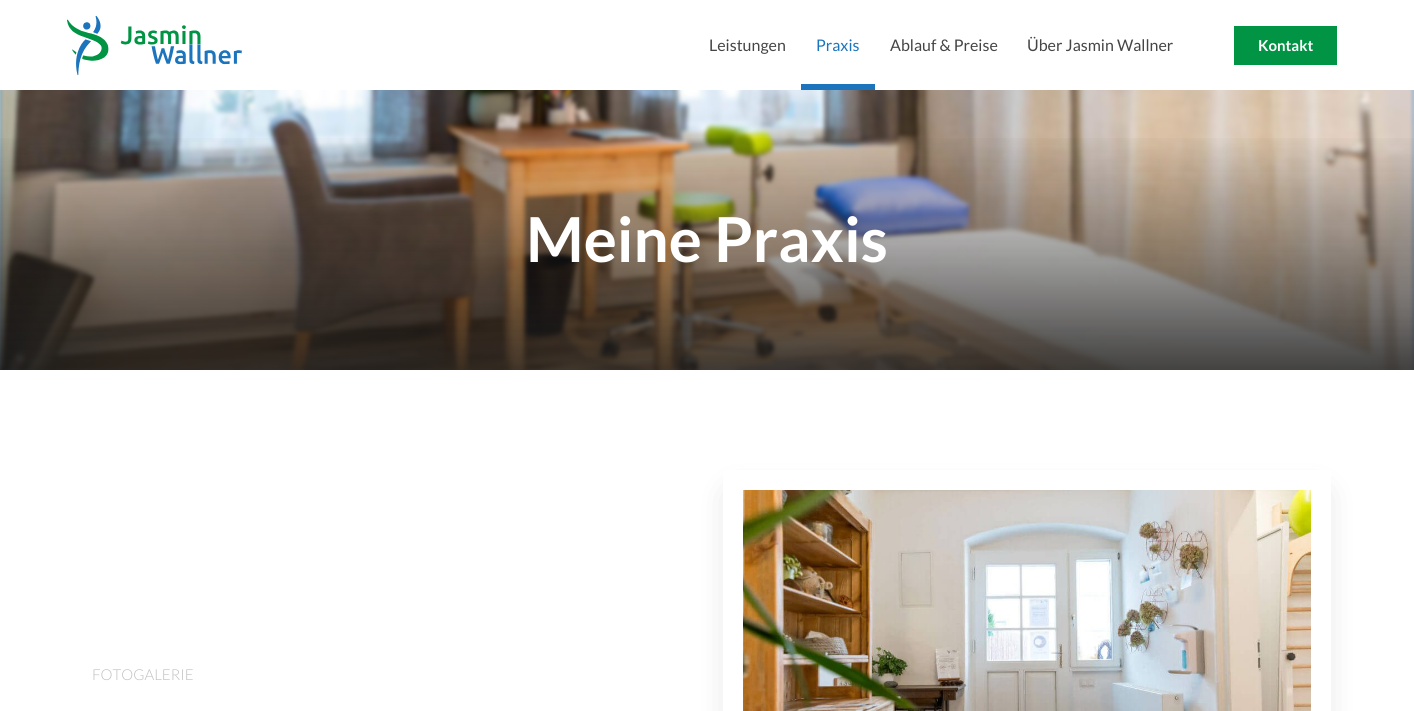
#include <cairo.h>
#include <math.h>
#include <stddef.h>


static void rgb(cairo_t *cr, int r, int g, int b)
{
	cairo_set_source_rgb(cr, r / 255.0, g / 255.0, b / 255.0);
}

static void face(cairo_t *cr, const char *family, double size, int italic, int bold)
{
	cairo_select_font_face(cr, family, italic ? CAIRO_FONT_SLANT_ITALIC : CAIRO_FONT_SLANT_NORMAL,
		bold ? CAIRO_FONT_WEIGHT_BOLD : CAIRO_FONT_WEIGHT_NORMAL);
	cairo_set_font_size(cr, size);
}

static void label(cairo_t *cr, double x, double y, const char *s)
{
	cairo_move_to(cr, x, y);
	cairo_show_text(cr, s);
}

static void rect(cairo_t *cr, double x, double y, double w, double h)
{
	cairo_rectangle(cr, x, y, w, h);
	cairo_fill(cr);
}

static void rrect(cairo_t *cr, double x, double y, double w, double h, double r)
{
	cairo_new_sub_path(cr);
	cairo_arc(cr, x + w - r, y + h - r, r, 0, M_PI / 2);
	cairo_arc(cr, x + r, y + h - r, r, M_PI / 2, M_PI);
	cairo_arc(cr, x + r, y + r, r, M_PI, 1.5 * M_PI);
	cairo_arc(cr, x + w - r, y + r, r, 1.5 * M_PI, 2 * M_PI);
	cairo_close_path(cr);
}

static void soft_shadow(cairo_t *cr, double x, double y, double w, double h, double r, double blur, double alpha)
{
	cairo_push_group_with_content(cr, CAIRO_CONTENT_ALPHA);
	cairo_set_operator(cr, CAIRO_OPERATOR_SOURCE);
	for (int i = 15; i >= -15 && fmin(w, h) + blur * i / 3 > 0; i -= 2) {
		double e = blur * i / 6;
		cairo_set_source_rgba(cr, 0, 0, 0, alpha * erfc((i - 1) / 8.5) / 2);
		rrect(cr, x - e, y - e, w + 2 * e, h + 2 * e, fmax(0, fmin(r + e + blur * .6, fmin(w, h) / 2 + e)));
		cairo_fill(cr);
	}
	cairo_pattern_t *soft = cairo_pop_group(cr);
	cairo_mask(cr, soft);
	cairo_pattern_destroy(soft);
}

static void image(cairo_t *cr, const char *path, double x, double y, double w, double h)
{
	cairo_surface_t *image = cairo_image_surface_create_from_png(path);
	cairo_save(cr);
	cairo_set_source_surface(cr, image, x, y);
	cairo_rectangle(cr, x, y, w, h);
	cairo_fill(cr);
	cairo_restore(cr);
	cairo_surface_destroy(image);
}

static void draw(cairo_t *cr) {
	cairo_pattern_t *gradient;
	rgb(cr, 255, 255, 255);
	cairo_paint(cr);
	cairo_save(cr);
	cairo_rectangle(cr, 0, 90, 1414, 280);
	cairo_clip(cr);
	rgb(cr, 28, 117, 188);
	soft_shadow(cr, 0, -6, 1414, 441, 0, 2, 1);
	cairo_restore(cr);
	image(cr, "image0.png", 67, 15, 175, 61);
	face(cr, "Lato", 16, 0, 0);
	rgb(cr, 69, 69, 69);
	label(cr, 709, 51, "Leistungen");
	rgb(cr, 28, 117, 188);
	label(cr, 816, 51, "Praxis");
	rect(cr, 801, 84, 74, 6);
	rgb(cr, 69, 69, 69);
	label(cr, 890, 51, "Ablauf & Preise");
	label(cr, 1027, 51, "Über Jasmin Wallner");
	rgb(cr, 0, 148, 68);
	rect(cr, 1234, 26, 103, 39);
	face(cr, "Lato", 15, 0, 1);
	rgb(cr, 255, 255, 255);
	label(cr, 1258, 51, "Kontakt");
	image(cr, "image1.png", 0, 90, 1414, 280);
	gradient = cairo_pattern_create_linear(707, 90, 707, 370);
	cairo_pattern_add_color_stop_rgba(gradient, 0.15, 0.125, 0.125, 0.125, 0);
	cairo_pattern_add_color_stop_rgba(gradient, 1, 0.125, 0.125, 0.125, 0.84);
	cairo_set_source(cr, gradient);
	cairo_pattern_destroy(gradient);
	rect(cr, 0, 138, 1414, 232);
	face(cr, "Lato", 62, 0, 1);
	rgb(cr, 255, 255, 255);
	label(cr, 526, 262, "Meine Praxis");
	face(cr, "Lato Light", 15, 0, 0);
	rgb(cr, 191, 191, 191);
	label(cr, 92, 680, "FOTOGALERIE");
	cairo_save(cr);
	cairo_set_fill_rule(cr, CAIRO_FILL_RULE_EVEN_ODD);
	cairo_new_path(cr);
	cairo_move_to(cr, 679, 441);
	cairo_line_to(cr, 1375, 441);
	cairo_line_to(cr, 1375, 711);
	cairo_line_to(cr, 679, 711);
	cairo_close_path(cr);
	cairo_move_to(cr, 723, 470);
	cairo_line_to(cr, 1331, 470);
	cairo_line_to(cr, 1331, 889);
	cairo_line_to(cr, 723, 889);
	cairo_close_path(cr);
	cairo_clip(cr);
	rgb(cr, 0, 0, 0);
	soft_shadow(cr, 733, 495, 588, 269, 0, 17.5, 0.15);
	cairo_restore(cr);
	image(cr, "image2.png", 743, 490, 568, 221);
}

int main(void) {
	cairo_surface_t *surface = cairo_image_surface_create(CAIRO_FORMAT_RGB24, 1414, 711);
	cairo_t *cr = cairo_create(surface);
	cairo_font_options_t *options = cairo_font_options_create();
	cairo_font_options_set_hint_metrics(options, CAIRO_HINT_METRICS_OFF);
	cairo_font_options_set_hint_style(options, CAIRO_HINT_STYLE_NONE);
	cairo_set_font_options(cr, options);
	cairo_set_miter_limit(cr, 4);
	draw(cr);
	cairo_surface_write_to_png(surface, "render.png");
	cairo_font_options_destroy(options);
	cairo_destroy(cr);
	cairo_surface_destroy(surface);
	return 0;
}
